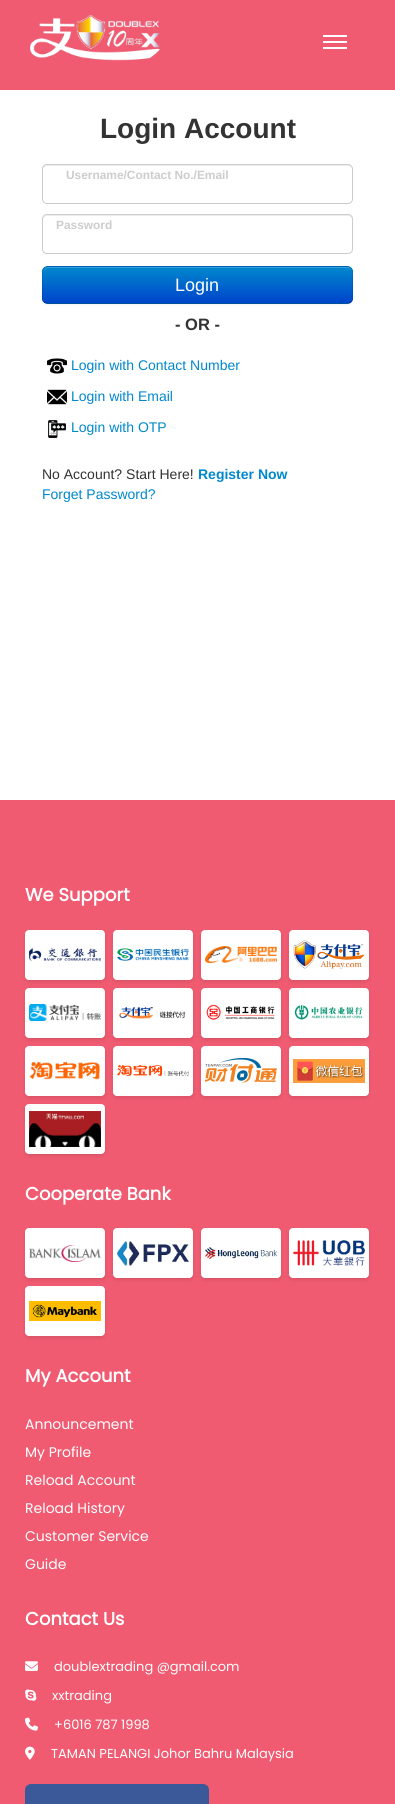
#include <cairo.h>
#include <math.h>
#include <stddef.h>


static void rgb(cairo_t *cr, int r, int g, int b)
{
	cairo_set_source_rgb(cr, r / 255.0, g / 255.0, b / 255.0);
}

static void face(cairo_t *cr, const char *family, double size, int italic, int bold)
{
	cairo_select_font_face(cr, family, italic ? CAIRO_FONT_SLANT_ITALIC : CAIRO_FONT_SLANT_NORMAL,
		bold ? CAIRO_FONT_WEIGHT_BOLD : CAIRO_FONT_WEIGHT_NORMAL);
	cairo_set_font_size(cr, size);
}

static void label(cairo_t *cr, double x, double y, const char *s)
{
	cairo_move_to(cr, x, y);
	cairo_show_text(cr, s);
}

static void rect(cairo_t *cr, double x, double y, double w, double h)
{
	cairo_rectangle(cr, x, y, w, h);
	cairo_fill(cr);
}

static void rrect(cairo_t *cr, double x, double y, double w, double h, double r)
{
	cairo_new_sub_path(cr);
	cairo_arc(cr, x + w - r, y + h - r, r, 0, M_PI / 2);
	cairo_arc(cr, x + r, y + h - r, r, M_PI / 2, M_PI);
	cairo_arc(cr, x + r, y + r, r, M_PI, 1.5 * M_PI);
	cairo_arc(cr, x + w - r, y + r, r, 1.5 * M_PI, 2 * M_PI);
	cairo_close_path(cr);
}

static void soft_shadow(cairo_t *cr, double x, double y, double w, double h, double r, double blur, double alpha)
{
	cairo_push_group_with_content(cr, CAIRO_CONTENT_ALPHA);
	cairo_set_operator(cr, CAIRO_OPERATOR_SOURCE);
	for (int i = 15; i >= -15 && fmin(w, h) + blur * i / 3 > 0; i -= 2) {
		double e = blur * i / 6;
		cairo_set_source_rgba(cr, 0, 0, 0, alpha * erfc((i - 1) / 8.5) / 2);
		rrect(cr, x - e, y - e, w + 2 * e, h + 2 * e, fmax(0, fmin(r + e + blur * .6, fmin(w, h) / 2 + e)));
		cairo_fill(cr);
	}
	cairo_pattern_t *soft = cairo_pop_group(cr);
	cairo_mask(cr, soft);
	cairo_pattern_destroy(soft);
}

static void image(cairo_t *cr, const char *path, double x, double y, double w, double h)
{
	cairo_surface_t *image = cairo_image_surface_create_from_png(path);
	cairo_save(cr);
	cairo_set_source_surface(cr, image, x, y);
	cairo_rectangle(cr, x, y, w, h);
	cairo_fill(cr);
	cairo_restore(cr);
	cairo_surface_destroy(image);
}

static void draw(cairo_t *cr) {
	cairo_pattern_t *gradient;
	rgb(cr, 255, 255, 255);
	cairo_paint(cr);
	rgb(cr, 240, 91, 113);
	rect(cr, 0, 0, 395, 90);
	image(cr, "image0.png", 30, 15, 130, 46);
	rgb(cr, 255, 255, 255);
	rect(cr, 323, 41, 24, 2);
	rect(cr, 323, 35, 24, 2);
	rect(cr, 323, 47, 24, 2);
	face(cr, "Liberation Sans", 28, 0, 1);
	rgb(cr, 51, 51, 51);
	label(cr, 100, 138, "Login Account");
	rgb(cr, 236, 236, 236);
	cairo_new_path(cr);
	cairo_move_to(cr, 47, 166);
	cairo_line_to(cr, 348, 166);
	cairo_curve_to(cr, 350, 166, 352, 168, 352, 170);
	cairo_curve_to(cr, 352, 167, 351, 165, 348, 165);
	cairo_line_to(cr, 47, 165);
	cairo_line_to(cr, 44, 166);
	cairo_curve_to(cr, 43, 167, 43, 169, 43, 170);
	cairo_curve_to(cr, 43, 168, 45, 166, 47, 166);
	cairo_close_path(cr);
	cairo_fill(cr);
	rrect(cr, 42.5, 164.5, 310, 39, 4.5);
	rgb(cr, 204, 204, 204);
	cairo_set_line_width(cr, 1);
	cairo_stroke(cr);
	face(cr, "Liberation Sans", 11.9, 0, 1);
	label(cr, 66, 179, "Username/Contact No./Email");
	rgb(cr, 236, 236, 236);
	cairo_new_path(cr);
	cairo_move_to(cr, 47, 216);
	cairo_line_to(cr, 348, 216);
	cairo_curve_to(cr, 350, 216, 352, 218, 352, 220);
	cairo_curve_to(cr, 352, 217, 351, 215, 348, 215);
	cairo_line_to(cr, 47, 215);
	cairo_line_to(cr, 44, 216);
	cairo_curve_to(cr, 43, 217, 43, 219, 43, 220);
	cairo_curve_to(cr, 43, 218, 45, 216, 47, 216);
	cairo_close_path(cr);
	cairo_fill(cr);
	rrect(cr, 42.5, 214.5, 310, 39, 4.5);
	rgb(cr, 204, 204, 204);
	cairo_stroke(cr);
	label(cr, 56, 229, "Password");
	rgb(cr, 0, 0, 0);
	soft_shadow(cr, 42, 267, 311, 38, 6, 1, 0.05);
	rgb(cr, 0, 109, 204);
	rrect(cr, 42, 266, 311, 38, 6);
	cairo_fill(cr);
	cairo_save(cr);
	rrect(cr, 42, 266, 311, 38, 6);
	cairo_clip(cr);
	gradient = cairo_pattern_create_linear(198, 267, 198, 303);
	cairo_pattern_add_color_stop_rgba(gradient, 0, 0, 0.533, 0.8, 1);
	cairo_pattern_add_color_stop_rgba(gradient, 1, 0, 0.267, 0.8, 1);
	cairo_set_source(cr, gradient);
	cairo_pattern_destroy(gradient);
	rect(cr, 42, 267, 311, 36);
	cairo_restore(cr);
	rgb(cr, 51, 159, 214);
	cairo_new_path(cr);
	cairo_move_to(cr, 48, 268);
	cairo_line_to(cr, 347, 268);
	cairo_curve_to(cr, 350, 268, 352, 270, 352, 273);
	cairo_curve_to(cr, 352, 270, 350, 267, 347, 267);
	cairo_line_to(cr, 48, 267);
	cairo_curve_to(cr, 45, 267, 43, 270, 43, 273);
	cairo_curve_to(cr, 43, 270, 45, 268, 48, 268);
	cairo_close_path(cr);
	cairo_fill(cr);
	cairo_new_path(cr);
	cairo_move_to(cr, 351, 302);
	cairo_curve_to(cr, 350, 303, 348.5, 303.5, 347, 303.5);
	cairo_line_to(cr, 48, 303.5);
	cairo_curve_to(cr, 46.5, 303.5, 45, 303, 44, 302);
	cairo_set_source_rgba(cr, 0, 0, 0, 0.25);
	cairo_stroke(cr);
	cairo_new_path(cr);
	cairo_move_to(cr, 44, 302);
	cairo_curve_to(cr, 41, 299, 42.5, 293, 42.5, 289.5);
	cairo_line_to(cr, 42.5, 276.5);
	cairo_curve_to(cr, 42.5, 272.5, 42.5, 266.5, 48, 266.5);
	cairo_line_to(cr, 347, 266.5);
	cairo_curve_to(cr, 352.5, 266.5, 352.5, 272.5, 352.5, 276.5);
	cairo_line_to(cr, 352.5, 289.5);
	cairo_curve_to(cr, 352.5, 293, 354, 299, 351, 302);
	cairo_set_source_rgba(cr, 0, 0, 0, 0.1);
	cairo_stroke(cr);
	face(cr, "Liberation Sans", 18, 0, 0);
	rgb(cr, 255, 255, 255);
	label(cr, 175, 291, "Login");
	face(cr, "Liberation Sans", 16.5, 0, 1);
	rgb(cr, 51, 51, 51);
	label(cr, 175, 330, "- OR -");
	image(cr, "image1.png", 47, 358, 20, 16);
	face(cr, "Liberation Sans", 14, 0, 0);
	rgb(cr, 0, 136, 204);
	label(cr, 71, 370, "Login with Contact Number");
	image(cr, "image2.png", 47, 389, 20, 16);
	label(cr, 71, 401, "Login with Email");
	image(cr, "image3.png", 48, 420, 18, 18);
	label(cr, 71, 432, "Login with OTP");
	rgb(cr, 51, 51, 51);
	label(cr, 42, 479, "No Account? Start Here!");
	face(cr, "Liberation Sans", 14, 0, 1);
	rgb(cr, 0, 136, 204);
	label(cr, 198, 479, "Register Now");
	face(cr, "Liberation Sans", 14, 0, 0);
	label(cr, 42, 499, "Forget Password?");
	rgb(cr, 240, 91, 113);
	rect(cr, 0, 800, 395, 1004);
	face(cr, "Poppins", 18, 0, 1);
	rgb(cr, 255, 255, 255);
	label(cr, 25, 901, "We Support");
	rgb(cr, 0, 0, 0);
	soft_shadow(cr, 25, 932, 80, 50, 4, 2, 0.1);
	rgb(cr, 255, 255, 255);
	rrect(cr, 25, 930, 80, 50, 4);
	cairo_fill(cr);
	image(cr, "image4.png", 29, 948, 72, 13);
	rgb(cr, 0, 0, 0);
	soft_shadow(cr, 113, 932, 80, 50, 4, 2, 0.1);
	rgb(cr, 255, 255, 255);
	rrect(cr, 113, 930, 80, 50, 4);
	cairo_fill(cr);
	image(cr, "image5.png", 117, 948, 72, 13);
	rgb(cr, 0, 0, 0);
	soft_shadow(cr, 201, 932, 80, 50, 4, 2, 0.1);
	rgb(cr, 255, 255, 255);
	rrect(cr, 201, 930, 80, 50, 4);
	cairo_fill(cr);
	image(cr, "image6.png", 205, 946, 72, 17);
	rgb(cr, 0, 0, 0);
	soft_shadow(cr, 289, 932, 80, 50, 4, 2, 0.1);
	rgb(cr, 255, 255, 255);
	rrect(cr, 289, 930, 80, 50, 4);
	cairo_fill(cr);
	image(cr, "image7.png", 293, 940, 72, 29);
	rgb(cr, 0, 0, 0);
	soft_shadow(cr, 25, 990, 80, 50, 4, 2, 0.1);
	rgb(cr, 255, 255, 255);
	rrect(cr, 25, 988, 80, 50, 4);
	cairo_fill(cr);
	image(cr, "image8.png", 29, 1004, 72, 17);
	rgb(cr, 0, 0, 0);
	soft_shadow(cr, 113, 990, 80, 50, 4, 2, 0.1);
	rgb(cr, 255, 255, 255);
	rrect(cr, 113, 988, 80, 50, 4);
	cairo_fill(cr);
	image(cr, "image9.png", 119, 1007, 67, 12);
	rgb(cr, 0, 0, 0);
	soft_shadow(cr, 201, 990, 80, 50, 4, 2, 0.1);
	rgb(cr, 255, 255, 255);
	rrect(cr, 201, 988, 80, 50, 4);
	cairo_fill(cr);
	image(cr, "image10.png", 206, 1004, 69, 16);
	rgb(cr, 0, 0, 0);
	soft_shadow(cr, 289, 990, 80, 50, 4, 2, 0.1);
	rgb(cr, 255, 255, 255);
	rrect(cr, 289, 988, 80, 50, 4);
	cairo_fill(cr);
	image(cr, "image11.png", 294, 1005, 69, 15);
	rgb(cr, 0, 0, 0);
	soft_shadow(cr, 25, 1048, 80, 50, 4, 2, 0.1);
	rgb(cr, 255, 255, 255);
	rrect(cr, 25, 1046, 80, 50, 4);
	cairo_fill(cr);
	image(cr, "image12.png", 29, 1061, 72, 19);
	rgb(cr, 0, 0, 0);
	soft_shadow(cr, 113, 1048, 80, 50, 4, 2, 0.1);
	rgb(cr, 255, 255, 255);
	rrect(cr, 113, 1046, 80, 50, 4);
	cairo_fill(cr);
	image(cr, "image13.png", 117, 1065, 72, 11);
	rgb(cr, 0, 0, 0);
	soft_shadow(cr, 201, 1048, 80, 50, 4, 2, 0.1);
	rgb(cr, 255, 255, 255);
	rrect(cr, 201, 1046, 80, 50, 4);
	cairo_fill(cr);
	image(cr, "image14.png", 205, 1058, 72, 25);
	rgb(cr, 0, 0, 0);
	soft_shadow(cr, 289, 1048, 80, 50, 4, 2, 0.1);
	rgb(cr, 255, 255, 255);
	rrect(cr, 289, 1046, 80, 50, 4);
	cairo_fill(cr);
	image(cr, "image15.png", 293, 1059, 72, 24);
	rgb(cr, 0, 0, 0);
	soft_shadow(cr, 25, 1106, 80, 50, 4, 2, 0.1);
	rgb(cr, 255, 255, 255);
	rrect(cr, 25, 1104, 80, 50, 4);
	cairo_fill(cr);
	image(cr, "image16.png", 29, 1111, 72, 36);
	label(cr, 25, 1200, "Cooperate Bank");
	rgb(cr, 0, 0, 0);
	soft_shadow(cr, 25, 1230, 80, 50, 4, 2, 0.1);
	rgb(cr, 255, 255, 255);
	rrect(cr, 25, 1228, 80, 50, 4);
	cairo_fill(cr);
	image(cr, "image17.png", 29, 1245, 72, 17);
	rgb(cr, 0, 0, 0);
	soft_shadow(cr, 113, 1230, 80, 50, 4, 2, 0.1);
	rgb(cr, 255, 255, 255);
	rrect(cr, 113, 1228, 80, 50, 4);
	cairo_fill(cr);
	image(cr, "image18.png", 117, 1241, 72, 25);
	rgb(cr, 0, 0, 0);
	soft_shadow(cr, 201, 1230, 80, 50, 4, 2, 0.1);
	rgb(cr, 255, 255, 255);
	rrect(cr, 201, 1228, 80, 50, 4);
	cairo_fill(cr);
	image(cr, "image19.png", 205, 1247, 72, 12);
	rgb(cr, 0, 0, 0);
	soft_shadow(cr, 289, 1230, 80, 50, 4, 2, 0.1);
	rgb(cr, 255, 255, 255);
	rrect(cr, 289, 1228, 80, 50, 4);
	cairo_fill(cr);
	image(cr, "image20.png", 293, 1240, 72, 26);
	rgb(cr, 0, 0, 0);
	soft_shadow(cr, 25, 1288, 80, 50, 4, 2, 0.1);
	rgb(cr, 255, 255, 255);
	rrect(cr, 25, 1286, 80, 50, 4);
	cairo_fill(cr);
	image(cr, "image21.png", 29, 1301, 72, 20);
	label(cr, 25, 1382, "My Account");
	face(cr, "Poppins", 14, 0, 0);
	label(cr, 25, 1429, "Announcement");
	label(cr, 25, 1457, "My Profile");
	label(cr, 25, 1485, "Reload Account");
	label(cr, 25, 1513, "Reload History");
	label(cr, 25, 1541, "Customer Service");
	label(cr, 25, 1569, "Guide");
	face(cr, "Poppins", 18, 0, 1);
	label(cr, 25, 1625, "Contact Us");
	image(cr, "image22.png", 25, 1661, 13, 10);
	face(cr, "Poppins", 13, 0, 0);
	label(cr, 54, 1671, "doublextrading @gmail.com");
	image(cr, "image23.png", 25, 1689, 12, 12);
	label(cr, 52, 1700, "xxtrading");
	image(cr, "image24.png", 25, 1717, 13, 14);
	label(cr, 54, 1729, "+6016 787 1998");
	image(cr, "image25.png", 25, 1746, 10, 14);
	label(cr, 51, 1758, "TAMAN PELANGI Johor Bahru Malaysia");
	rgb(cr, 59, 89, 152);
	rrect(cr, 25, 1784, 184, 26, 6);
	cairo_fill(cr);
}

int main(void) {
	cairo_surface_t *surface = cairo_image_surface_create(CAIRO_FORMAT_RGB24, 395, 1804);
	cairo_t *cr = cairo_create(surface);
	cairo_font_options_t *options = cairo_font_options_create();
	cairo_font_options_set_hint_metrics(options, CAIRO_HINT_METRICS_OFF);
	cairo_font_options_set_hint_style(options, CAIRO_HINT_STYLE_NONE);
	cairo_set_font_options(cr, options);
	cairo_set_miter_limit(cr, 4);
	draw(cr);
	cairo_surface_write_to_png(surface, "render.png");
	cairo_font_options_destroy(options);
	cairo_destroy(cr);
	cairo_surface_destroy(surface);
	return 0;
}
